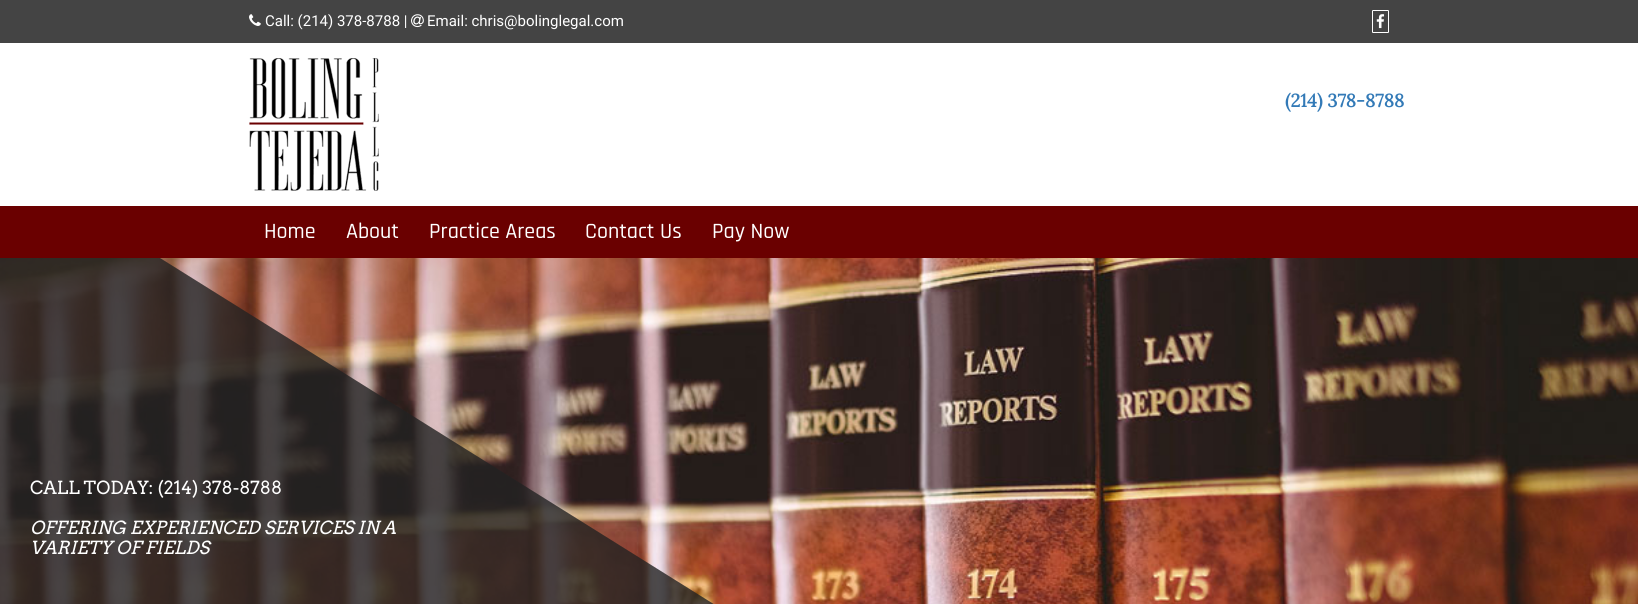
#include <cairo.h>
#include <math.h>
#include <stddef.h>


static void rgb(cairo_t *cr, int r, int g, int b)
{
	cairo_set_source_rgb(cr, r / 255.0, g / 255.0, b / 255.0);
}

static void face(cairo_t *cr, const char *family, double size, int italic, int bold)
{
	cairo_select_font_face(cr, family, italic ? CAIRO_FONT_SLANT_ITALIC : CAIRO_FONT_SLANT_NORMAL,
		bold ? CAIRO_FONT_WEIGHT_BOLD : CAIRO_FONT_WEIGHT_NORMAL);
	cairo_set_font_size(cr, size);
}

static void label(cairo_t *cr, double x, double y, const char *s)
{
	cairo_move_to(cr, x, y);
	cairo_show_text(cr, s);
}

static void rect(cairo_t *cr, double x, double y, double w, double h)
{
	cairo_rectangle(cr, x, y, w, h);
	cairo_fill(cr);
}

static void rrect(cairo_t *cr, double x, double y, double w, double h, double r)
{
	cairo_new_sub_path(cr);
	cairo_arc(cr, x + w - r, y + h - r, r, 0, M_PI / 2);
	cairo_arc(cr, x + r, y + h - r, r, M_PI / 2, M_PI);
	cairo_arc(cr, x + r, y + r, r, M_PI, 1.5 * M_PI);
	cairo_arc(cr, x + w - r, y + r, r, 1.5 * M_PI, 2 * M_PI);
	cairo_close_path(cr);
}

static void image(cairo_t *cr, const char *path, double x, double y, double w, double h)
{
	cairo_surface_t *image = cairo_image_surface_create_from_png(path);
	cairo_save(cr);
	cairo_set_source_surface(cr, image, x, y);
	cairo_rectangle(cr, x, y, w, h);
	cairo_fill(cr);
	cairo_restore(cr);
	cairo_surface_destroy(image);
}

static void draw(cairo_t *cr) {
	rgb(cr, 255, 255, 255);
	cairo_paint(cr);
	rgb(cr, 68, 68, 68);
	rect(cr, 0, 0, 1638, 43);
	image(cr, "image0.png", 249, 14, 12, 12);
	face(cr, "Roboto", 15, 0, 0);
	rgb(cr, 255, 255, 255);
	label(cr, 265, 26, "Call: (214) 378-8788 |");
	image(cr, "image1.png", 411, 14, 13, 14);
	label(cr, 427, 26, "Email: chris@bolinglegal.com");
	rrect(cr, 1372.5, 10.5, 16, 22, 0.5);
	cairo_set_line_width(cr, 1);
	cairo_stroke(cr);
	image(cr, "image2.png", 1376, 14, 9, 15);
	image(cr, "image3.png", 249, 58, 130, 133);
	face(cr, "Lora", 18.25, 0, 1);
	rgb(cr, 51, 122, 183);
	label(cr, 1285, 107, "(214) 378-8788");
	rgb(cr, 106, 0, 0);
	rect(cr, 0, 206, 1638, 52);
	face(cr, "Rajdhani Medium", 22, 0, 0);
	rgb(cr, 255, 255, 255);
	label(cr, 264, 238, "Home");
	label(cr, 346, 238, "About");
	label(cr, 429, 238, "Practice Areas");
	label(cr, 585, 238, "Contact Us");
	label(cr, 712, 238, "Pay Now");
	image(cr, "image4.png", 0, 258, 1638, 346);
	cairo_save(cr);
	cairo_rectangle(cr, 0, 258, 1638, 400);
	cairo_clip(cr);
	cairo_set_source_rgba(cr, 0.133, 0.133, 0.133, 0.8);
	cairo_new_path(cr);
	cairo_move_to(cr, 0, 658);
	cairo_line_to(cr, 0, 158);
	cairo_line_to(cr, 800, 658);
	cairo_close_path(cr);
	cairo_fill(cr);
	cairo_restore(cr);
	face(cr, "Arvo", 18, 0, 0);
	label(cr, 30, 494, "CALL TODAY: (214) 378-8788");
	face(cr, "Arvo", 18, 1, 0);
	label(cr, 30, 534, "OFFERING EXPERIENCED SERVICES IN A");
	label(cr, 30, 554, "VARIETY OF FIELDS");
}

int main(void) {
	cairo_surface_t *surface = cairo_image_surface_create(CAIRO_FORMAT_RGB24, 1638, 604);
	cairo_t *cr = cairo_create(surface);
	cairo_font_options_t *options = cairo_font_options_create();
	cairo_font_options_set_hint_metrics(options, CAIRO_HINT_METRICS_OFF);
	cairo_font_options_set_hint_style(options, CAIRO_HINT_STYLE_NONE);
	cairo_set_font_options(cr, options);
	cairo_set_miter_limit(cr, 4);
	draw(cr);
	cairo_surface_write_to_png(surface, "render.png");
	cairo_font_options_destroy(options);
	cairo_destroy(cr);
	cairo_surface_destroy(surface);
	return 0;
}
